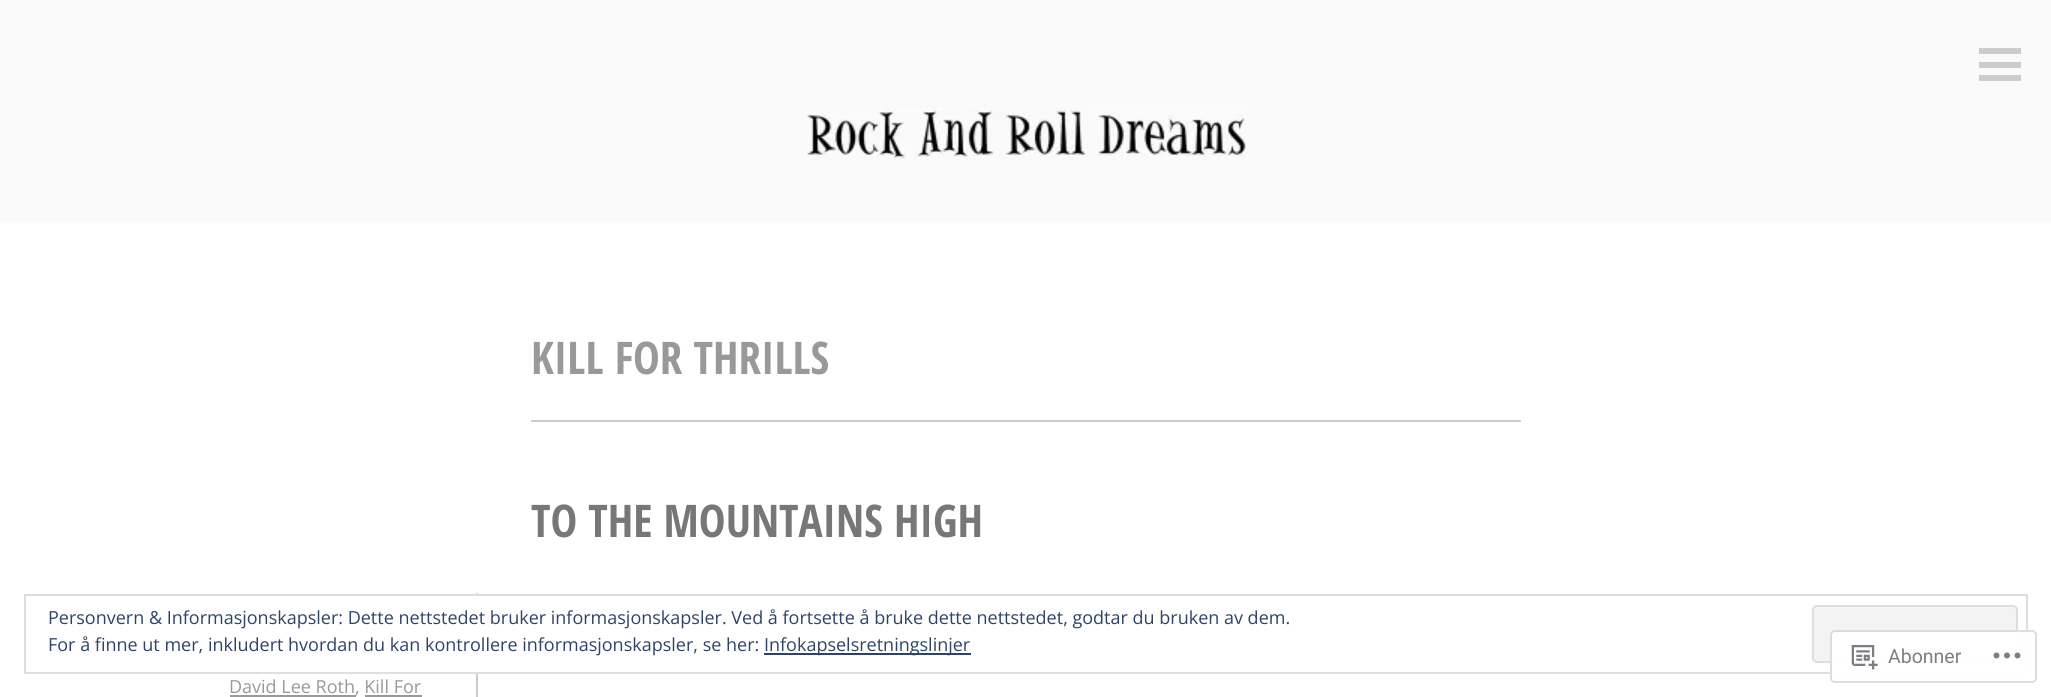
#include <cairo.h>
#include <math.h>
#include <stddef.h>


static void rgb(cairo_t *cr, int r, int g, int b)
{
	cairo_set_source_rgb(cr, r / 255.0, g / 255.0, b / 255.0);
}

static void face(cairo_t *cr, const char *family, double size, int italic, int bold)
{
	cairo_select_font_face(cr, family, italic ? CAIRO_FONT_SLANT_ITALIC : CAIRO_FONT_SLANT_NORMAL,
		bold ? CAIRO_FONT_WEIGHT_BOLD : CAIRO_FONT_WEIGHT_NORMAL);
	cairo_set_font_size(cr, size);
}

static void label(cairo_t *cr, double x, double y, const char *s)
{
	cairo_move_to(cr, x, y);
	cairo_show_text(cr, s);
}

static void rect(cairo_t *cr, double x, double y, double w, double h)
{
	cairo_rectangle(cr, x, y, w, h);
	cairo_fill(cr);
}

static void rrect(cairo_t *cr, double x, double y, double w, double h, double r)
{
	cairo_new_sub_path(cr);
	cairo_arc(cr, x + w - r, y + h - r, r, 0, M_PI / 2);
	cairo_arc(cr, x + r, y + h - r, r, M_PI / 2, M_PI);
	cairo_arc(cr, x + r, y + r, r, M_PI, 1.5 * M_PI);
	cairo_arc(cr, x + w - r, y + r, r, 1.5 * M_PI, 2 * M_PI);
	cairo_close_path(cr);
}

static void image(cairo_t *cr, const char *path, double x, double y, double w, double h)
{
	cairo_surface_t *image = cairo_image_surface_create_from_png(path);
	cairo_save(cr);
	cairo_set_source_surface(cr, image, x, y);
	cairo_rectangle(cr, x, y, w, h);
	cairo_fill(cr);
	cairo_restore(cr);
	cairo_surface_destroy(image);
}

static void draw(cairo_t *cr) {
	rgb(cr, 255, 255, 255);
	cairo_paint(cr);
	rgb(cr, 250, 250, 250);
	rect(cr, 0, 0, 2051, 222);
	rgb(cr, 204, 204, 204);
	rect(cr, 1979, 48, 42, 6);
	rect(cr, 1979, 62, 42, 6);
	rect(cr, 1979, 75, 42, 6);
	image(cr, "image0.png", 807, 108, 439, 51);
	rect(cr, 531, 420, 990, 2);
	face(cr, "Open Sans Condensed", 45, 0, 1);
	rgb(cr, 153, 153, 153);
	label(cr, 531, 374, "KILL FOR THRILLS");
	rgb(cr, 119, 119, 119);
	label(cr, 531, 537, "TO THE MOUNTAINS HIGH");
	rgb(cr, 204, 204, 204);
	rect(cr, 476, 593, 2, 104);
	rgb(cr, 153, 153, 153);
	rect(cr, 230, 695, 126, 2);
	face(cr, "Open Sans", 18, 0, 0);
	label(cr, 229, 693, "David Lee Roth, Kill For");
	rect(cr, 365, 695, 57, 2);
	rgb(cr, 255, 255, 255);
	rect(cr, 476, 596, 2, 76);
	cairo_rectangle(cr, 25, 595, 2002, 78);
	rgb(cr, 222, 222, 222);
	cairo_stroke(cr);
	rgb(cr, 46, 68, 103);
	label(cr, 48, 624, "Personvern & Informasjonskapsler: Dette nettstedet bruker informasjonskapsler. Ved å fortsette å bruke dette nettstedet, godtar du bruken av dem.");
	rgb(cr, 243, 243, 243);
	rrect(cr, 1813, 606, 204, 56, 4);
	cairo_fill_preserve(cr);
	rgb(cr, 222, 222, 222);
	cairo_stroke(cr);
	rgb(cr, 46, 68, 103);
	label(cr, 48, 651, "For å finne ut mer, inkludert hvordan du kan kontrollere informasjonskapsler, se her:");
	rect(cr, 764, 653, 207, 2);
	label(cr, 764, 651, "Infokapselsretningslinjer");
	cairo_set_source_rgba(cr, 1, 1, 1, 0.98);
	rrect(cr, 1830, 630, 207, 53, 5);
	cairo_fill(cr);
	rrect(cr, 1831, 631, 205, 51, 4);
	cairo_set_source_rgba(cr, 0.863, 0.863, 0.871, 0.98);
	cairo_stroke(cr);
	image(cr, "image1.png", 1851, 645, 27, 25);
	face(cr, "Roboto", 19.5, 0, 0);
	rgb(cr, 123, 127, 132);
	label(cr, 1888, 663, "Abonner");
	image(cr, "image2.png", 1993, 652, 28, 7);
}

int main(void) {
	cairo_surface_t *surface = cairo_image_surface_create(CAIRO_FORMAT_RGB24, 2051, 697);
	cairo_t *cr = cairo_create(surface);
	cairo_font_options_t *options = cairo_font_options_create();
	cairo_font_options_set_hint_metrics(options, CAIRO_HINT_METRICS_OFF);
	cairo_font_options_set_hint_style(options, CAIRO_HINT_STYLE_NONE);
	cairo_set_font_options(cr, options);
	cairo_set_miter_limit(cr, 4);
	draw(cr);
	cairo_surface_write_to_png(surface, "render.png");
	cairo_font_options_destroy(options);
	cairo_destroy(cr);
	cairo_surface_destroy(surface);
	return 0;
}
